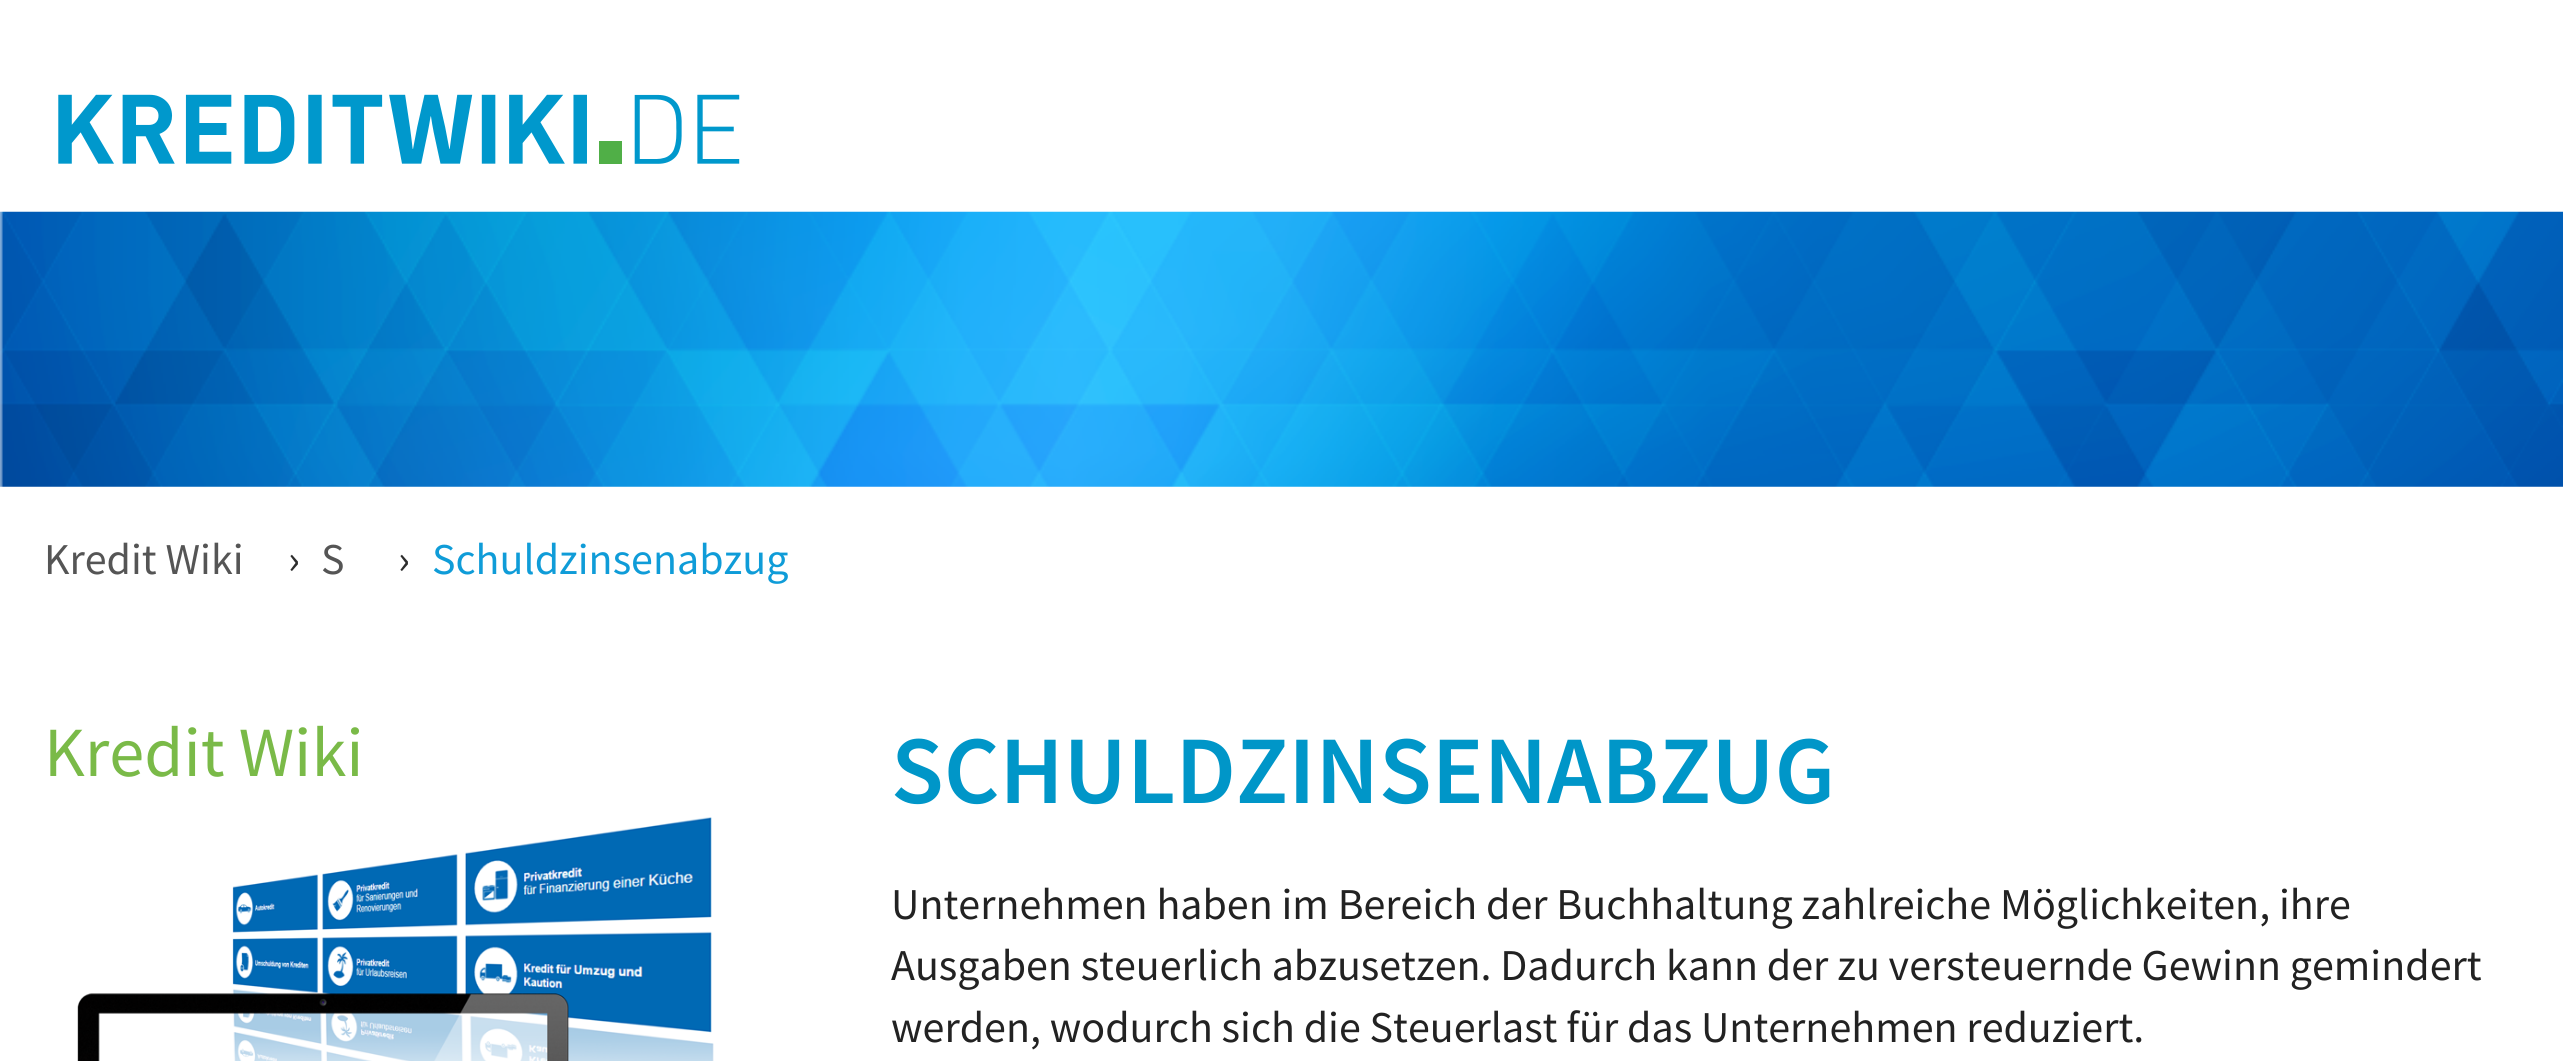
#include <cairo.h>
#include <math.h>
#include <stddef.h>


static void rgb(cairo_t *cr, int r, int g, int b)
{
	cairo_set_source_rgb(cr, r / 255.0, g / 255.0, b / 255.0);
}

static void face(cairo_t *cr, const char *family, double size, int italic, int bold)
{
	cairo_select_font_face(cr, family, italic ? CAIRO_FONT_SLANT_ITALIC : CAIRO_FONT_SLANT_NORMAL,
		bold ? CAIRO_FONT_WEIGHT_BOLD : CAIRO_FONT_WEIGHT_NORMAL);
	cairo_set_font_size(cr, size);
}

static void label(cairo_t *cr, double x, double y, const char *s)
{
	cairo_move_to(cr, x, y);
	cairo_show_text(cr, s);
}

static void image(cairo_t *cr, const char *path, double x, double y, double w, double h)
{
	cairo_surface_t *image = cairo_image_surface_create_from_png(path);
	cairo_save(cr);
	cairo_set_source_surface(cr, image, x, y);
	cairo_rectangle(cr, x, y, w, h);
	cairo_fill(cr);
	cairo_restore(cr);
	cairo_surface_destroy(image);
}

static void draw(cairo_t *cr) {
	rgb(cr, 255, 255, 255);
	cairo_paint(cr);
	image(cr, "image0.png", 58, 94, 682, 70);
	image(cr, "image1.png", 0, 211, 2563, 276);
	face(cr, "Source Sans Pro", 44, 0, 0);
	rgb(cr, 85, 85, 85);
	label(cr, 44, 574, "Kredit Wiki");
	rgb(cr, 45, 45, 45);
	label(cr, 288, 574, "›");
	rgb(cr, 85, 85, 85);
	label(cr, 321, 574, "S");
	rgb(cr, 45, 45, 45);
	label(cr, 398, 574, "›");
	rgb(cr, 15, 156, 216);
	label(cr, 432, 574, "Schuldzinsenabzug");
	face(cr, "Source Sans Pro", 70.5, 0, 0);
	rgb(cr, 122, 186, 72);
	label(cr, 44, 776, "Kredit Wiki");
	image(cr, "image2.png", 77, 817, 637, 244);
	face(cr, "Source Sans Pro SemiBold", 96.75, 0, 0);
	rgb(cr, 0, 150, 200);
	label(cr, 891, 803, "SCHULDZINSENABZUG");
	face(cr, "Source Sans Pro", 44, 0, 0);
	rgb(cr, 34, 34, 34);
	label(cr, 891, 919, "Unternehmen haben im Bereich der Buchhaltung zahlreiche Möglichkeiten, ihre");
	label(cr, 891, 980, "Ausgaben steuerlich abzusetzen. Dadurch kann der zu versteuernde Gewinn gemindert");
	label(cr, 891, 1042, "werden, wodurch sich die Steuerlast für das Unternehmen reduziert.");
}

int main(void) {
	cairo_surface_t *surface = cairo_image_surface_create(CAIRO_FORMAT_RGB24, 2563, 1061);
	cairo_t *cr = cairo_create(surface);
	cairo_font_options_t *options = cairo_font_options_create();
	cairo_font_options_set_hint_metrics(options, CAIRO_HINT_METRICS_OFF);
	cairo_font_options_set_hint_style(options, CAIRO_HINT_STYLE_NONE);
	cairo_set_font_options(cr, options);
	cairo_set_miter_limit(cr, 4);
	draw(cr);
	cairo_surface_write_to_png(surface, "render.png");
	cairo_font_options_destroy(options);
	cairo_destroy(cr);
	cairo_surface_destroy(surface);
	return 0;
}
